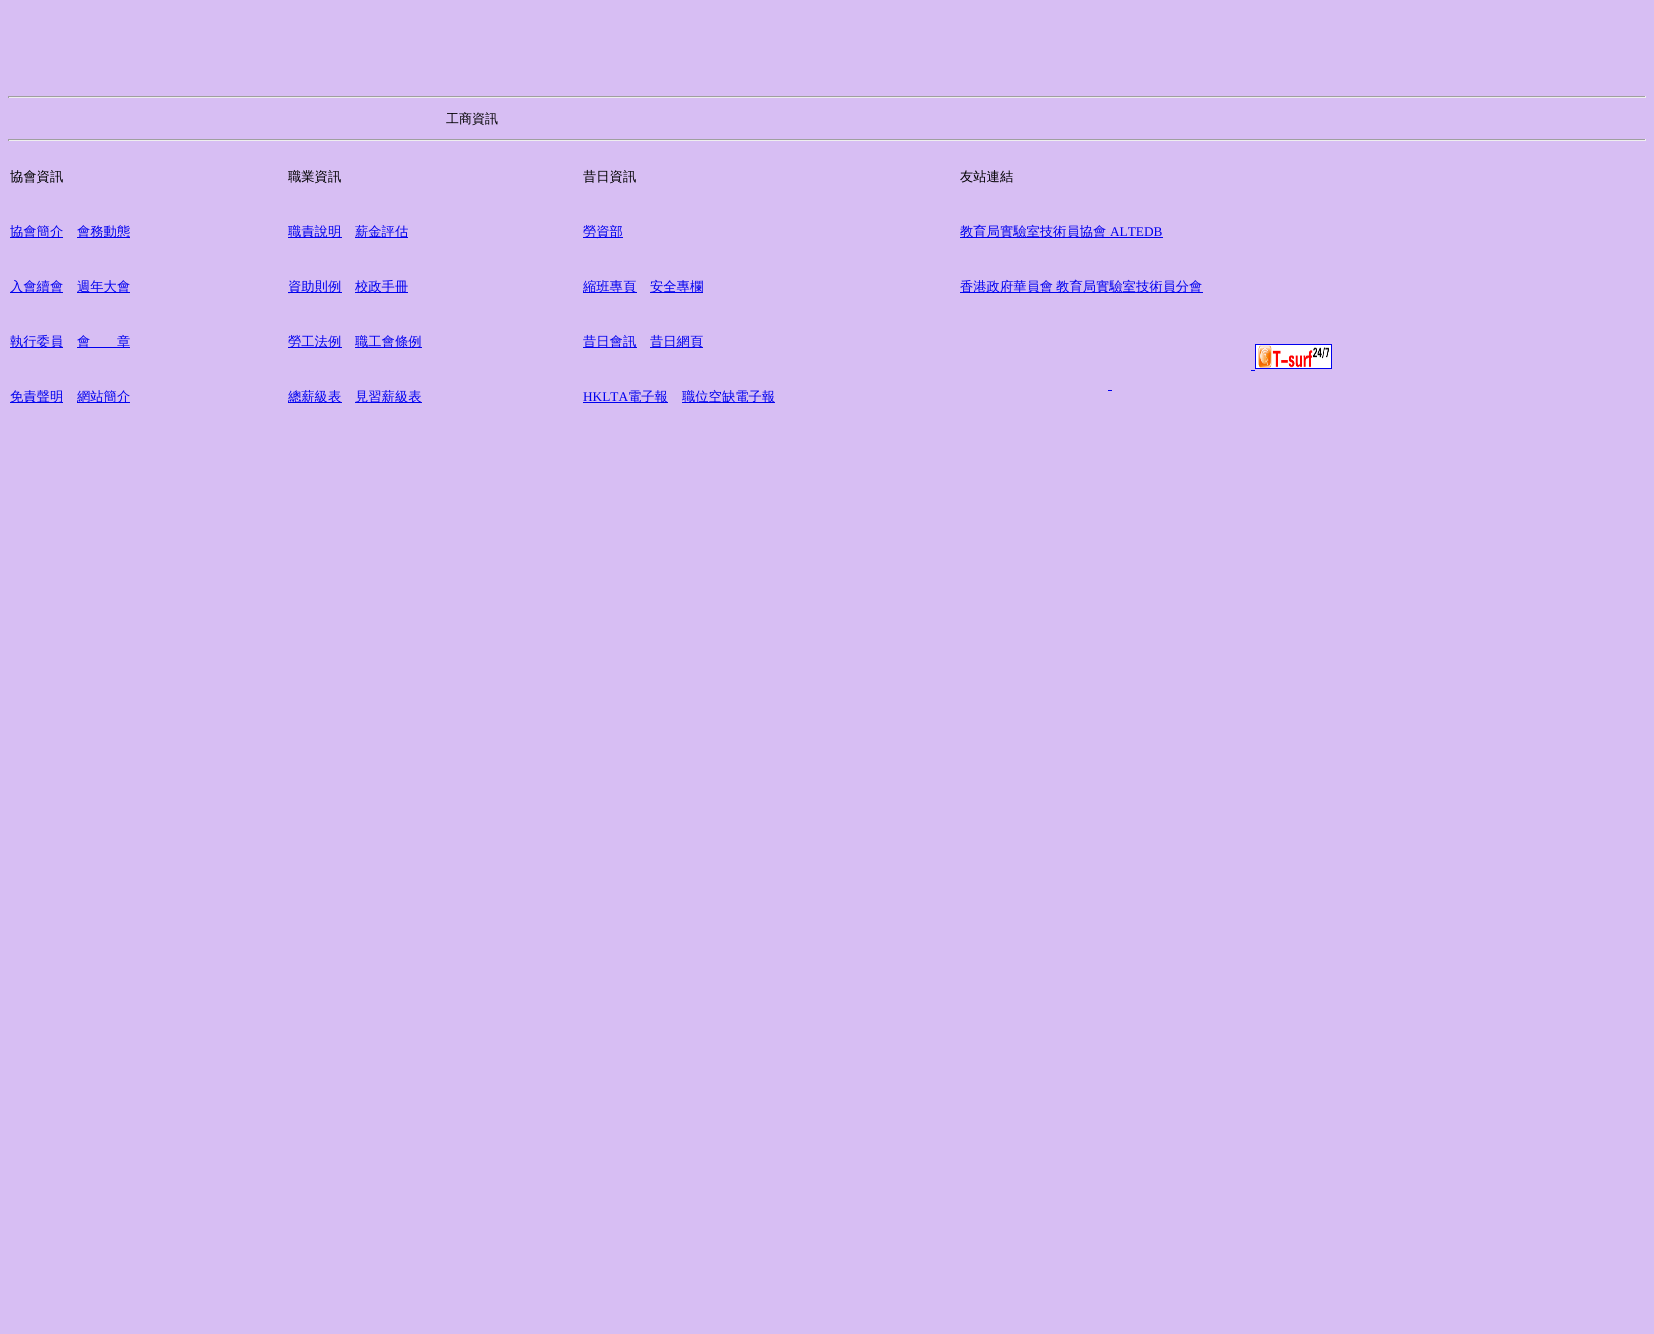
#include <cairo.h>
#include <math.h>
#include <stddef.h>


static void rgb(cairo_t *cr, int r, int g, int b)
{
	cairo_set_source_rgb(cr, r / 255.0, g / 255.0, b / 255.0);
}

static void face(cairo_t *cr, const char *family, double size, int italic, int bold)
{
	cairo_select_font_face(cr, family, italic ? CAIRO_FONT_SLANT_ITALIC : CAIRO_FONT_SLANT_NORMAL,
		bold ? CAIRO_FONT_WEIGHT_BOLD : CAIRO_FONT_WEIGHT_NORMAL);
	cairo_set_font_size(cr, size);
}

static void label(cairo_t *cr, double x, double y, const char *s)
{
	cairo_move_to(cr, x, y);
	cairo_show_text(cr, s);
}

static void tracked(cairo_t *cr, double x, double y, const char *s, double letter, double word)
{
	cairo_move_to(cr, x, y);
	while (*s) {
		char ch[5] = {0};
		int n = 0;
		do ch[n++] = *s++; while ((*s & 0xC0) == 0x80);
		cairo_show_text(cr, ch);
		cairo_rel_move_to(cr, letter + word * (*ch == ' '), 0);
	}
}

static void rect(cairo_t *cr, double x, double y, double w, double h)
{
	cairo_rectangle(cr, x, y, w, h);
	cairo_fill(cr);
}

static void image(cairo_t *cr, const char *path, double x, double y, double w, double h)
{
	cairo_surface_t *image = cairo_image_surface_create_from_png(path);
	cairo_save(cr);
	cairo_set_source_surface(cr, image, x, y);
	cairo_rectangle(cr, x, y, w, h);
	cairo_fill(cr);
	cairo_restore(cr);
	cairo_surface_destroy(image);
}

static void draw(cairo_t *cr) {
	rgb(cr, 215, 190, 243);
	cairo_paint(cr);
	rgb(cr, 159, 159, 159);
	rect(cr, 8, 96, 1638, 1);
	rgb(cr, 238, 238, 238);
	rect(cr, 1645, 96, 1, 2);
	rect(cr, 8, 97, 1638, 1);
	rgb(cr, 159, 159, 159);
	rect(cr, 8, 96, 1, 2);
	face(cr, "WenQuanYi Zen Hei Medium", 13, 0, 0);
	rgb(cr, 0, 0, 0);
	label(cr, 446, 123, "工商資訊");
	rgb(cr, 159, 159, 159);
	rect(cr, 8, 139, 1638, 1);
	rgb(cr, 238, 238, 238);
	rect(cr, 1645, 139, 1, 2);
	rect(cr, 8, 140, 1638, 1);
	rgb(cr, 159, 159, 159);
	rect(cr, 8, 139, 1, 2);
	face(cr, "WenQuanYi Zen Hei Medium", 13.3, 0, 0);
	rgb(cr, 0, 0, 0);
	label(cr, 10, 181, "協會資訊");
	label(cr, 288, 181, "職業資訊");
	label(cr, 583, 181, "昔日資訊");
	label(cr, 960, 181, "友站連結");
	rgb(cr, 0, 0, 238);
	rect(cr, 10, 237, 53, 1);
	label(cr, 10, 236, "協會簡介");
	rect(cr, 77, 237, 53, 1);
	label(cr, 77, 236, "會務動態");
	rect(cr, 288, 237, 54, 1);
	label(cr, 288, 236, "職責說明");
	rect(cr, 355, 237, 53, 1);
	label(cr, 355, 236, "薪金評估");
	rect(cr, 583, 237, 40, 1);
	label(cr, 583, 236, "勞資部");
	rect(cr, 960, 237, 203, 1);
	label(cr, 960, 236, "教育局實驗室技術員協會");
	face(cr, "Liberation Serif", 13.3, 0, 0);
	label(cr, 1110, 236, "ALTEDB");
	rect(cr, 10, 292, 53, 1);
	face(cr, "WenQuanYi Zen Hei Medium", 13.3, 0, 0);
	label(cr, 10, 291, "入會續會");
	rect(cr, 77, 292, 53, 1);
	label(cr, 77, 291, "週年大會");
	rect(cr, 288, 292, 54, 1);
	label(cr, 288, 291, "資助則例");
	rect(cr, 355, 292, 53, 1);
	label(cr, 355, 291, "校政手冊");
	rect(cr, 583, 292, 54, 1);
	label(cr, 583, 291, "縮班專頁");
	rect(cr, 650, 292, 53, 1);
	label(cr, 650, 291, "安全專欄");
	rect(cr, 960, 292, 243, 1);
	tracked(cr, 960, 291, "香港政府華員會 教育局實驗室技術員分會", 0, -1);
	rect(cr, 10, 347, 53, 1);
	label(cr, 10, 346, "執行委員");
	rect(cr, 77, 347, 53, 1);
	label(cr, 77, 346, "會　　章");
	rect(cr, 288, 347, 54, 1);
	label(cr, 288, 346, "勞工法例");
	rect(cr, 355, 347, 67, 1);
	label(cr, 355, 346, "職工會條例");
	rect(cr, 583, 347, 54, 1);
	label(cr, 583, 346, "昔日會訊");
	rect(cr, 650, 347, 53, 1);
	label(cr, 650, 346, "昔日網頁");
	cairo_rectangle(cr, 1255.5, 344.5, 76, 24);
	cairo_set_line_width(cr, 1);
	cairo_stroke(cr);
	image(cr, "image0.png", 1256, 345, 75, 23);
	rect(cr, 1251, 370, 4, 1);
	rect(cr, 1108, 390, 4, 1);
	rect(cr, 10, 402, 53, 1);
	label(cr, 10, 401, "免責聲明");
	rect(cr, 77, 402, 53, 1);
	label(cr, 77, 401, "網站簡介");
	rect(cr, 288, 402, 54, 1);
	label(cr, 288, 401, "總薪級表");
	rect(cr, 355, 402, 67, 1);
	label(cr, 355, 401, "見習薪級表");
	face(cr, "Liberation Serif", 13.3, 0, 0);
	label(cr, 583, 401, "HKLTA");
	rect(cr, 583, 402, 85, 1);
	face(cr, "WenQuanYi Zen Hei Medium", 13.3, 0, 0);
	label(cr, 628, 401, "電子報");
	rect(cr, 682, 402, 93, 1);
	label(cr, 682, 401, "職位空缺電子報");
}

int main(void) {
	cairo_surface_t *surface = cairo_image_surface_create(CAIRO_FORMAT_RGB24, 1654, 1334);
	cairo_t *cr = cairo_create(surface);
	cairo_font_options_t *options = cairo_font_options_create();
	cairo_font_options_set_hint_metrics(options, CAIRO_HINT_METRICS_OFF);
	cairo_font_options_set_hint_style(options, CAIRO_HINT_STYLE_NONE);
	cairo_set_font_options(cr, options);
	cairo_set_miter_limit(cr, 4);
	draw(cr);
	cairo_surface_write_to_png(surface, "render.png");
	cairo_font_options_destroy(options);
	cairo_destroy(cr);
	cairo_surface_destroy(surface);
	return 0;
}
